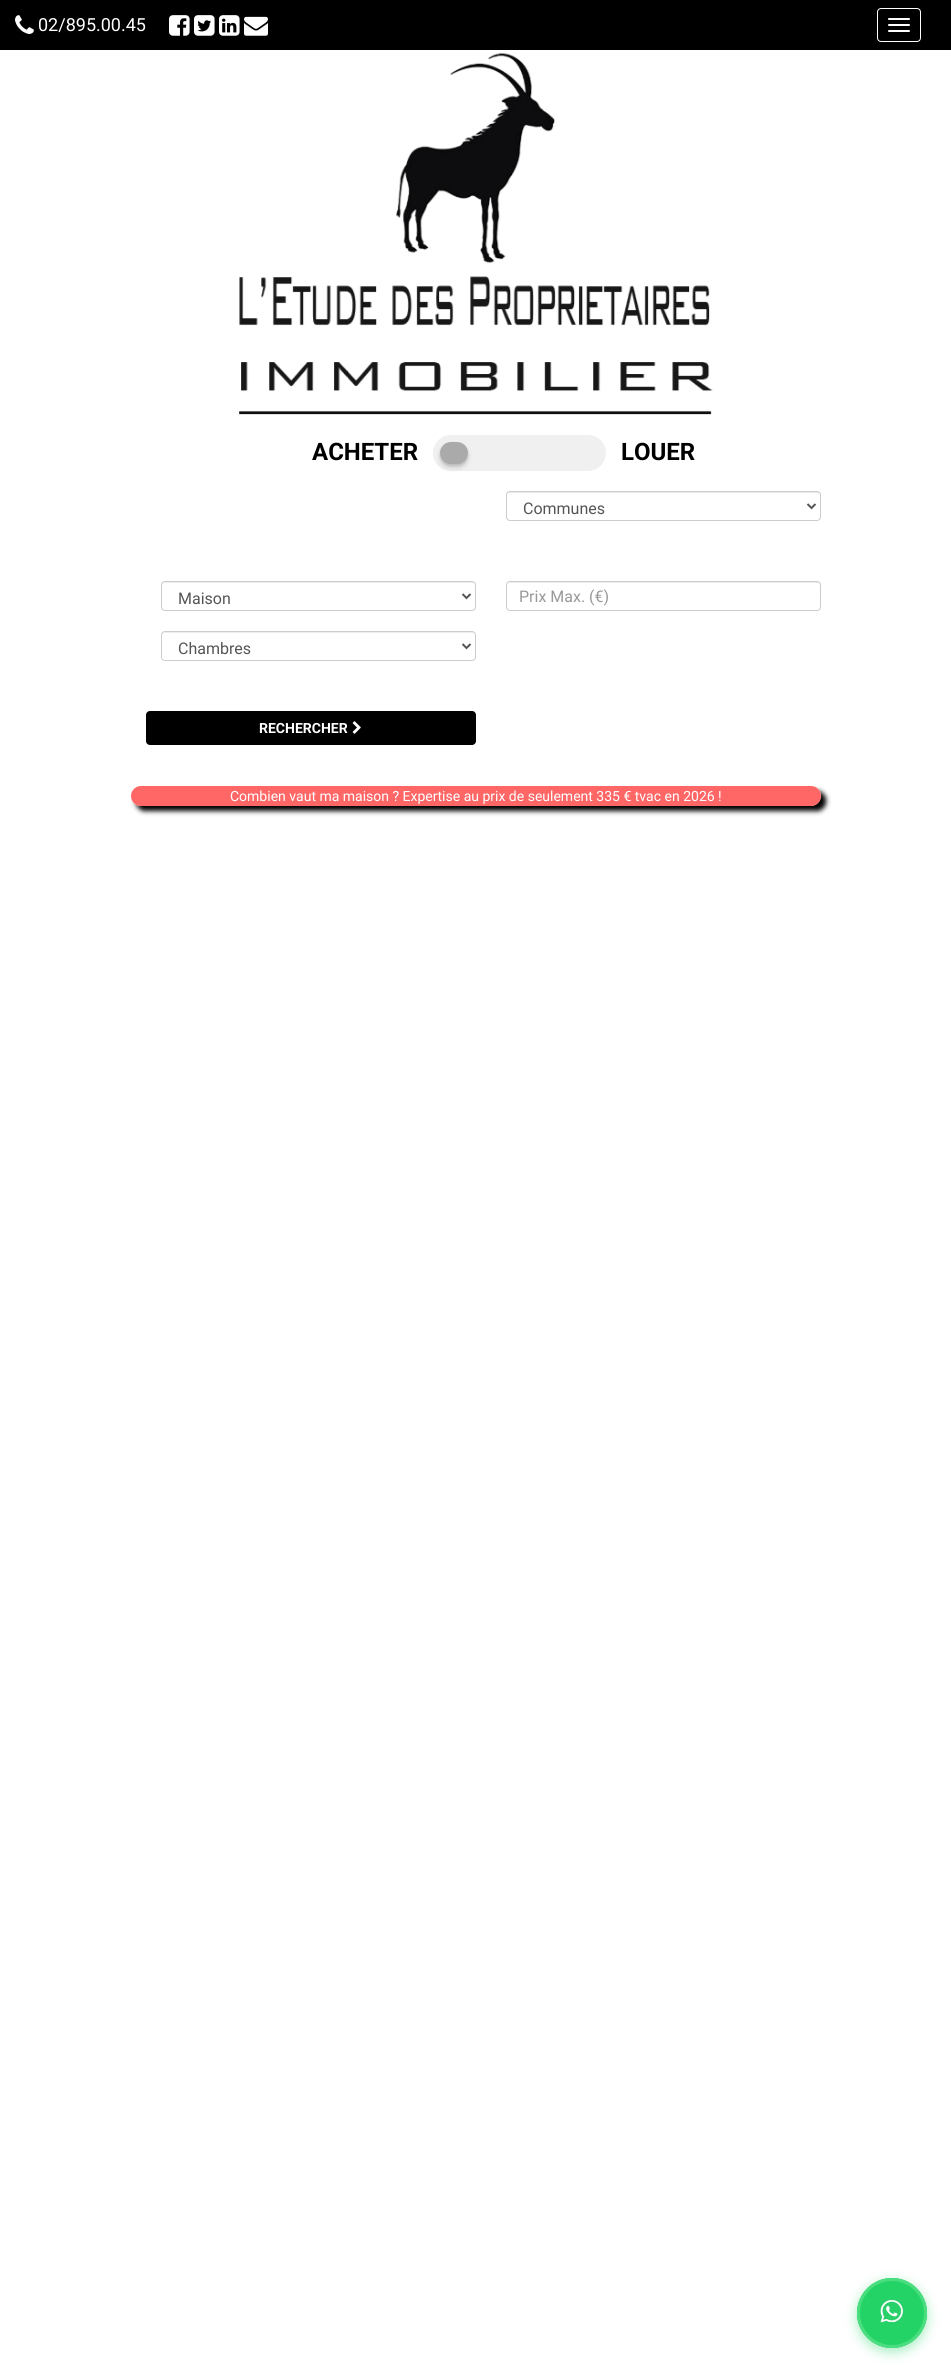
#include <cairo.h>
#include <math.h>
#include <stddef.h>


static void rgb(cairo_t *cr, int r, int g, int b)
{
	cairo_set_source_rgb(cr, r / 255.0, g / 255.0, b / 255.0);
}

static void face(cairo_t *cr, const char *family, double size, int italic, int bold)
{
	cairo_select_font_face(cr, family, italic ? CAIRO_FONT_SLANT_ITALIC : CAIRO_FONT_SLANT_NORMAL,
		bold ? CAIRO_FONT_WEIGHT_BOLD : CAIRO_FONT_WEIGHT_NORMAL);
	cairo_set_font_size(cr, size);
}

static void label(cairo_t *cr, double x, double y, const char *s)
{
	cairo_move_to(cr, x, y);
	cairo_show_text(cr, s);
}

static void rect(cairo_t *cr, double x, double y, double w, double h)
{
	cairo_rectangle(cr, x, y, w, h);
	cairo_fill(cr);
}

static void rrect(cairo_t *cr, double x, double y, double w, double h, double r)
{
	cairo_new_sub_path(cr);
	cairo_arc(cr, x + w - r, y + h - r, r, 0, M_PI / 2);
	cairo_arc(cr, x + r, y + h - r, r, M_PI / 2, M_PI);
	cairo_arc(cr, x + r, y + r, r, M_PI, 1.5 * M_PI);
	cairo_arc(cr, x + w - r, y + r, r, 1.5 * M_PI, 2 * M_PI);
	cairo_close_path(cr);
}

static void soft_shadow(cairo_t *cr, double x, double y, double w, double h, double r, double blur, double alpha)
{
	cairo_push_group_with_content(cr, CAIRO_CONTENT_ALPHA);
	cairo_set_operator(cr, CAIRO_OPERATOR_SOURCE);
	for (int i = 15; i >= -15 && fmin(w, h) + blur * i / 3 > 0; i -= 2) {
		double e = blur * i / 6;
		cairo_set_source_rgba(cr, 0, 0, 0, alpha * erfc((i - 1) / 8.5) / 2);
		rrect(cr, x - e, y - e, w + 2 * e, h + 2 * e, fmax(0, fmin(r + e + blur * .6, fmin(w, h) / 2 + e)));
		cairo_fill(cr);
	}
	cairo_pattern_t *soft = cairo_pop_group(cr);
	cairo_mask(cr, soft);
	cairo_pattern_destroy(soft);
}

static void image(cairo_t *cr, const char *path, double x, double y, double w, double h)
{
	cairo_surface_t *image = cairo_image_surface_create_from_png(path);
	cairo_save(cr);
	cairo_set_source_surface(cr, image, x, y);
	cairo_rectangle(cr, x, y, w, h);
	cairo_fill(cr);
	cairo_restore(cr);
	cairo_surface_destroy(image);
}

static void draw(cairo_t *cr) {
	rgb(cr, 255, 255, 255);
	cairo_paint(cr);
	rgb(cr, 0, 0, 0);
	rect(cr, 0, 0, 951, 50);
	image(cr, "image0.png", 15, 15, 19, 19);
	face(cr, "Roboto", 18, 0, 0);
	rgb(cr, 255, 255, 255);
	label(cr, 38, 31, "02/895.00.45");
	image(cr, "image1.png", 169, 15, 21, 21);
	image(cr, "image2.png", 194, 15, 21, 21);
	image(cr, "image3.png", 219, 15, 21, 21);
	image(cr, "image4.png", 244, 16, 24, 20);
	rrect(cr, 877.5, 8.5, 43, 33, 3.5);
	cairo_set_line_width(cr, 1);
	cairo_stroke(cr);
	rrect(cr, 888, 18, 22, 2, 1);
	cairo_fill(cr);
	rrect(cr, 888, 24, 22, 2, 1);
	cairo_fill(cr);
	rrect(cr, 888, 30, 22, 2, 1);
	cairo_fill(cr);
	image(cr, "image5.png", 239, 52, 474, 363);
	face(cr, "Roboto", 24, 0, 1);
	rgb(cr, 0, 0, 0);
	label(cr, 312, 460, "ACHETER");
	rgb(cr, 240, 240, 240);
	rrect(cr, 433, 435, 173, 36, 18);
	cairo_fill(cr);
	rgb(cr, 43, 43, 43);
	soft_shadow(cr, 440, 447, 28, 22, 11, 2.5, 0.1);
	soft_shadow(cr, 440, 444, 28, 22, 11, 1.5, 0.2);
	rgb(cr, 170, 170, 170);
	rrect(cr, 440, 442, 28, 22, 11);
	cairo_fill(cr);
	rgb(cr, 0, 0, 0);
	label(cr, 621, 460, "LOUER");
	rgb(cr, 236, 236, 236);
	cairo_new_path(cr);
	cairo_move_to(cr, 510, 493);
	cairo_line_to(cr, 817, 493);
	cairo_curve_to(cr, 819, 493, 820, 494, 820, 496);
	cairo_line_to(cr, 819, 493);
	cairo_line_to(cr, 818, 492);
	cairo_line_to(cr, 510, 492);
	cairo_curve_to(cr, 508, 492, 507, 494, 507, 496);
	cairo_curve_to(cr, 507, 494, 508, 493, 510, 493);
	cairo_close_path(cr);
	cairo_fill(cr);
	rrect(cr, 506.5, 491.5, 314, 29, 3.5);
	rgb(cr, 204, 204, 204);
	cairo_stroke(cr);
	cairo_new_path(cr);
	cairo_move_to(cr, 807.5, 504);
	cairo_line_to(cr, 811.5, 508);
	cairo_line_to(cr, 815.5, 504);
	rgb(cr, 85, 85, 85);
	cairo_set_line_width(cr, 2);
	cairo_stroke(cr);
	face(cr, "Roboto", 16, 0, 0);
	label(cr, 523, 514, "Communes");
	rgb(cr, 236, 236, 236);
	cairo_new_path(cr);
	cairo_move_to(cr, 165, 583);
	cairo_line_to(cr, 472, 583);
	cairo_curve_to(cr, 474, 583, 475, 584, 475, 586);
	cairo_line_to(cr, 474, 583);
	cairo_line_to(cr, 473, 582);
	cairo_line_to(cr, 165, 582);
	cairo_curve_to(cr, 163, 582, 162, 584, 162, 586);
	cairo_curve_to(cr, 162, 584, 163, 583, 165, 583);
	cairo_close_path(cr);
	cairo_fill(cr);
	rrect(cr, 161.5, 581.5, 314, 29, 3.5);
	rgb(cr, 204, 204, 204);
	cairo_set_line_width(cr, 1);
	cairo_stroke(cr);
	cairo_new_path(cr);
	cairo_move_to(cr, 462.5, 594);
	cairo_line_to(cr, 466.5, 598);
	cairo_line_to(cr, 470.5, 594);
	rgb(cr, 85, 85, 85);
	cairo_set_line_width(cr, 2);
	cairo_stroke(cr);
	label(cr, 178, 604, "Maison");
	rgb(cr, 236, 236, 236);
	cairo_new_path(cr);
	cairo_move_to(cr, 510, 583);
	cairo_line_to(cr, 817, 583);
	cairo_curve_to(cr, 819, 583, 820, 584, 820, 586);
	cairo_line_to(cr, 819, 583);
	cairo_line_to(cr, 818, 582);
	cairo_line_to(cr, 510, 582);
	cairo_curve_to(cr, 508, 582, 507, 584, 507, 586);
	cairo_curve_to(cr, 507, 584, 508, 583, 510, 583);
	cairo_close_path(cr);
	cairo_fill(cr);
	rrect(cr, 506.5, 581.5, 314, 29, 3.5);
	rgb(cr, 204, 204, 204);
	cairo_set_line_width(cr, 1);
	cairo_stroke(cr);
	rgb(cr, 153, 153, 153);
	label(cr, 519, 602, "Prix Max. (€)");
	rgb(cr, 236, 236, 236);
	cairo_new_path(cr);
	cairo_move_to(cr, 165, 633);
	cairo_line_to(cr, 472, 633);
	cairo_curve_to(cr, 474, 633, 475, 634, 475, 636);
	cairo_line_to(cr, 474, 633);
	cairo_line_to(cr, 473, 632);
	cairo_line_to(cr, 165, 632);
	cairo_curve_to(cr, 163, 632, 162, 634, 162, 636);
	cairo_curve_to(cr, 162, 634, 163, 633, 165, 633);
	cairo_close_path(cr);
	cairo_fill(cr);
	rrect(cr, 161.5, 631.5, 314, 29, 3.5);
	rgb(cr, 204, 204, 204);
	cairo_stroke(cr);
	cairo_new_path(cr);
	cairo_move_to(cr, 462.5, 644);
	cairo_line_to(cr, 466.5, 648);
	cairo_line_to(cr, 470.5, 644);
	rgb(cr, 85, 85, 85);
	cairo_set_line_width(cr, 2);
	cairo_stroke(cr);
	label(cr, 178, 654, "Chambres");
	rgb(cr, 0, 0, 0);
	rrect(cr, 146, 711, 330, 34, 4);
	cairo_fill(cr);
	face(cr, "Roboto", 14, 0, 1);
	rgb(cr, 255, 255, 255);
	label(cr, 259, 733, "RECHERCHER");
	image(cr, "image6.png", 352, 721, 9, 13);
	cairo_save(cr);
	cairo_set_fill_rule(cr, CAIRO_FILL_RULE_EVEN_ODD);
	cairo_new_path(cr);
	cairo_move_to(cr, 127, 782);
	cairo_line_to(cr, 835, 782);
	cairo_line_to(cr, 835, 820);
	cairo_line_to(cr, 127, 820);
	cairo_close_path(cr);
	cairo_move_to(cr, 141, 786);
	cairo_line_to(cr, 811, 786);
	cairo_curve_to(cr, 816.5, 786, 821, 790.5, 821, 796);
	cairo_curve_to(cr, 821, 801.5, 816.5, 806, 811, 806);
	cairo_line_to(cr, 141, 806);
	cairo_curve_to(cr, 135.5, 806, 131, 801.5, 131, 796);
	cairo_curve_to(cr, 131, 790.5, 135.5, 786, 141, 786);
	cairo_close_path(cr);
	cairo_clip(cr);
	rgb(cr, 0, 0, 0);
	soft_shadow(cr, 136, 791, 690, 20, 10, 2.5, 1);
	cairo_restore(cr);
	cairo_set_source_rgba(cr, 1, 0, 0, 0.6);
	rrect(cr, 131, 786, 690, 20, 10);
	cairo_fill(cr);
	face(cr, "Roboto", 14, 0, 0);
	rgb(cr, 255, 255, 255);
	label(cr, 230, 801, "Combien vaut ma maison ? Expertise au prix de seulement 335 € tvac en 2026 !");
	rgb(cr, 37, 211, 102);
	soft_shadow(cr, 857, 2282, 70, 70, 35, 6, 0.4);
	rgb(cr, 37, 211, 102);
	cairo_arc(cr, 892, 2313, 35, 0, 2 * M_PI);
	cairo_fill(cr);
	cairo_set_source_rgba(cr, 0.145, 0.827, 0.4, 0.4);
	cairo_arc(cr, 892, 2313, 35, 0, 2 * M_PI);
	cairo_fill(cr);
	image(cr, "image7.png", 880, 2299, 25, 24);
	cairo_arc(cr, 892, 2313, 33.5, 0, 2 * M_PI);
	rgb(cr, 74, 222, 128);
	cairo_set_line_width(cr, 3);
	cairo_stroke(cr);
}

int main(void) {
	cairo_surface_t *surface = cairo_image_surface_create(CAIRO_FORMAT_RGB24, 951, 2372);
	cairo_t *cr = cairo_create(surface);
	cairo_font_options_t *options = cairo_font_options_create();
	cairo_font_options_set_hint_metrics(options, CAIRO_HINT_METRICS_OFF);
	cairo_font_options_set_hint_style(options, CAIRO_HINT_STYLE_NONE);
	cairo_set_font_options(cr, options);
	cairo_set_miter_limit(cr, 4);
	draw(cr);
	cairo_surface_write_to_png(surface, "render.png");
	cairo_font_options_destroy(options);
	cairo_destroy(cr);
	cairo_surface_destroy(surface);
	return 0;
}
